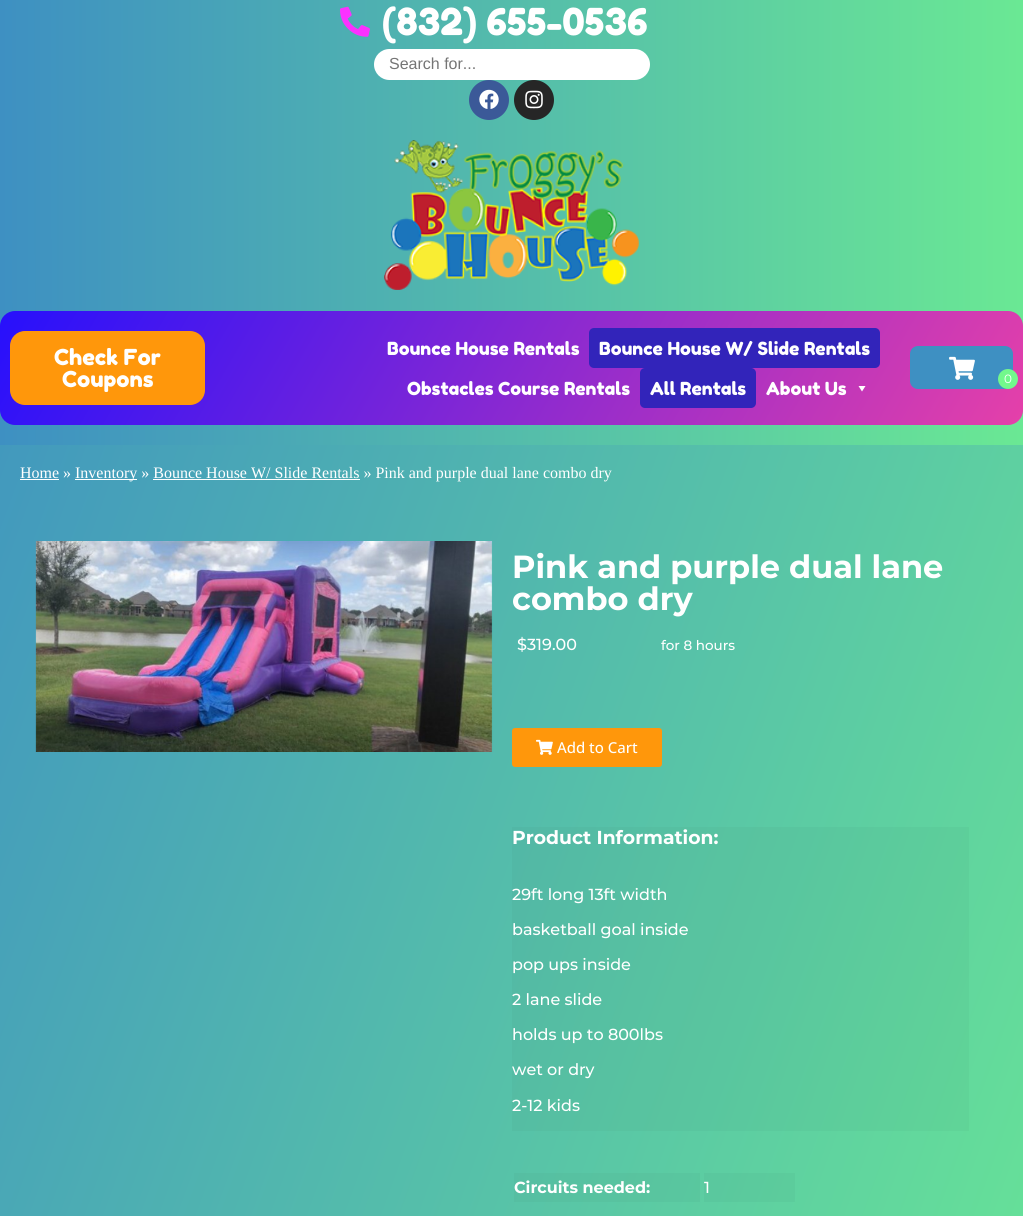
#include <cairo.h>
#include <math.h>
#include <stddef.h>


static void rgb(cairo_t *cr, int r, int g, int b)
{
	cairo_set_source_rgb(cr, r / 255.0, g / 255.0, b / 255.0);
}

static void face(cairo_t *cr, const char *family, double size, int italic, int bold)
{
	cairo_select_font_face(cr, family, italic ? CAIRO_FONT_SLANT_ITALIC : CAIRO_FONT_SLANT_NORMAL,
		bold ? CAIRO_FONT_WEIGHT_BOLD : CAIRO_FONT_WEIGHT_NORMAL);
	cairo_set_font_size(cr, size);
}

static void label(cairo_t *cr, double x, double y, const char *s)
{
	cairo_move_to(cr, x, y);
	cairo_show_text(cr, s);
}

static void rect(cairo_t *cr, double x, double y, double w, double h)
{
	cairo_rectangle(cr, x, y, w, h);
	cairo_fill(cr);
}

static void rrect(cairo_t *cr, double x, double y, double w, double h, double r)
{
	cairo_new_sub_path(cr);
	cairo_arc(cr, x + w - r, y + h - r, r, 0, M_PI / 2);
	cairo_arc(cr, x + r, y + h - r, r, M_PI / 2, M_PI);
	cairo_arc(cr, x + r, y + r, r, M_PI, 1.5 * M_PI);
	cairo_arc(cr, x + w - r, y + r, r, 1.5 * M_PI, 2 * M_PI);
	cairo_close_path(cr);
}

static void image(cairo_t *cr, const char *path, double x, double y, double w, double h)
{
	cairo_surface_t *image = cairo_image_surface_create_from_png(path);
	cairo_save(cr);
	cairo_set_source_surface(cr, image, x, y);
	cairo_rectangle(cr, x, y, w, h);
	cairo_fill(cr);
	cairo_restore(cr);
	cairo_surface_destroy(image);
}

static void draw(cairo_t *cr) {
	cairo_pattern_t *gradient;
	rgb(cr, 255, 255, 255);
	cairo_paint(cr);
	gradient = cairo_pattern_create_linear(-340, 934, 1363, 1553);
	cairo_pattern_add_color_stop_rgba(gradient, 0, 0.243, 0.565, 0.761, 1);
	cairo_pattern_add_color_stop_rgba(gradient, 1, 0.447, 0.973, 0.549, 1);
	cairo_set_source(cr, gradient);
	cairo_pattern_destroy(gradient);
	rect(cr, 0, 445, 1023, 771);
	gradient = cairo_pattern_create_linear(0, 223, 1023, 222);
	cairo_pattern_add_color_stop_rgba(gradient, 0, 0.243, 0.565, 0.761, 1);
	cairo_pattern_add_color_stop_rgba(gradient, 1, 0.416, 0.91, 0.58, 1);
	cairo_set_source(cr, gradient);
	cairo_pattern_destroy(gradient);
	rect(cr, 0, 0, 1023, 445);
	image(cr, "image0.png", 340, 6, 30, 31);
	face(cr, "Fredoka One", 37, 0, 0);
	rgb(cr, 255, 255, 255);
	label(cr, 382, 35, "(832) 655-0536");
	rrect(cr, 374, 49, 276, 31, 15.5);
	cairo_fill(cr);
	face(cr, "Liberation Sans", 16, 0, 0);
	rgb(cr, 117, 117, 117);
	label(cr, 389, 69, "Search for...");
	rgb(cr, 59, 89, 152);
	cairo_new_path(cr);
	cairo_arc(cr, 489, 100, 20, 0, 2 * M_PI);
	cairo_fill(cr);
	image(cr, "image1.png", 479, 89, 20, 20);
	rgb(cr, 38, 38, 38);
	cairo_arc(cr, 534, 100, 20, 0, 2 * M_PI);
	cairo_fill(cr);
	image(cr, "image2.png", 525, 90, 18, 19);
	image(cr, "image3.png", 384, 140, 255, 150);
	gradient = cairo_pattern_create_linear(103, 132, 920, 604);
	cairo_pattern_add_color_stop_rgba(gradient, 0, 0.153, 0.063, 0.988, 1);
	cairo_pattern_add_color_stop_rgba(gradient, 1, 0.898, 0.251, 0.663, 1);
	cairo_set_source(cr, gradient);
	cairo_pattern_destroy(gradient);
	rrect(cr, 0, 311, 1023, 114, 15);
	cairo_fill(cr);
	rgb(cr, 255, 151, 11);
	rrect(cr, 10, 331, 195, 74, 15);
	cairo_fill(cr);
	face(cr, "Fredoka One", 22, 0, 0);
	rgb(cr, 255, 255, 255);
	label(cr, 54, 365, "Check For");
	label(cr, 62, 387, "Coupons");
	face(cr, "Fredoka One", 18, 0, 0);
	label(cr, 387, 355, "Bounce House Rentals");
	rgb(cr, 50, 36, 186);
	rrect(cr, 589, 328, 291, 40, 5);
	cairo_fill(cr);
	rgb(cr, 255, 255, 255);
	label(cr, 599, 355, "Bounce House W/ Slide Rentals");
	label(cr, 407, 395, "Obstacles Course Rentals");
	rgb(cr, 50, 36, 186);
	rrect(cr, 640, 368, 116, 40, 5);
	cairo_fill(cr);
	rgb(cr, 255, 255, 255);
	label(cr, 650, 395, "All Rentals");
	label(cr, 766, 395, "About Us");
	cairo_new_path(cr);
	cairo_move_to(cr, 865.5, 386);
	cairo_line_to(cr, 862, 391.5);
	cairo_line_to(cr, 858.5, 386);
	cairo_close_path(cr);
	cairo_fill(cr);
	rgb(cr, 62, 144, 194);
	rrect(cr, 910, 346, 103, 43, 8);
	cairo_fill(cr);
	image(cr, "image4.png", 949, 356, 26, 24);
	rgb(cr, 114, 248, 140);
	cairo_arc(cr, 1008, 379, 10, 0, 2 * M_PI);
	cairo_fill(cr);
	face(cr, "Montserrat", 12, 0, 0);
	rgb(cr, 255, 255, 255);
	label(cr, 1004, 383, "0");
	face(cr, "Liberation Serif", 16, 0, 0);
	label(cr, 20, 478, "Home »");
	rect(cr, 20, 479, 39, 1);
	rect(cr, 75, 479, 62, 1);
	label(cr, 75, 478, "Inventory » Bounce House W/ Slide Rentals » Pink and purple dual lane combo dry");
	rect(cr, 153, 479, 207, 1);
	image(cr, "image5.png", 35, 541, 458, 211);
	face(cr, "Montserrat", 32, 0, 1);
	label(cr, 512, 578, "Pink and purple dual lane");
	label(cr, 512, 610, "combo dry");
	face(cr, "Montserrat Medium", 16, 0, 0);
	label(cr, 517, 650, "$319.00");
	face(cr, "Montserrat Medium", 13.5, 0, 0);
	label(cr, 661, 650, "for 8 hours");
	rgb(cr, 255, 151, 11);
	rrect(cr, 512, 728, 150, 39, 3);
	cairo_fill(cr);
	image(cr, "image6.png", 536, 739, 17, 16);
	face(cr, "Open Sans Medium", 15, 0, 0);
	rgb(cr, 255, 255, 255);
	label(cr, 557, 753, "Add to Cart");
	cairo_set_source_rgba(cr, 0, 0, 0, 0.03);
	rect(cr, 512, 827, 457, 304);
	face(cr, "Montserrat", 18.75, 0, 1);
	rgb(cr, 255, 255, 255);
	label(cr, 512, 844, "Product Information:");
	face(cr, "Montserrat Medium", 16, 0, 0);
	label(cr, 512, 900, "29ft long 13ft width");
	label(cr, 512, 935, "basketball goal inside");
	label(cr, 512, 970, "pop ups inside");
	label(cr, 512, 1005, "2 lane slide");
	label(cr, 512, 1040, "holds up to 800lbs");
	label(cr, 512, 1075, "wet or dry");
	label(cr, 512, 1111, "2-12 kids");
	cairo_set_source_rgba(cr, 0, 0, 0, 0.03);
	rect(cr, 514, 1173, 186, 29);
	face(cr, "Montserrat", 16, 0, 1);
	rgb(cr, 255, 255, 255);
	label(cr, 514, 1193, "Circuits needed:");
	cairo_set_source_rgba(cr, 0, 0, 0, 0.03);
	rect(cr, 704, 1173, 91, 29);
	face(cr, "Montserrat Medium", 16, 0, 0);
	rgb(cr, 255, 255, 255);
	label(cr, 704, 1193, "1");
}

int main(void) {
	cairo_surface_t *surface = cairo_image_surface_create(CAIRO_FORMAT_RGB24, 1023, 1216);
	cairo_t *cr = cairo_create(surface);
	cairo_font_options_t *options = cairo_font_options_create();
	cairo_font_options_set_hint_metrics(options, CAIRO_HINT_METRICS_OFF);
	cairo_font_options_set_hint_style(options, CAIRO_HINT_STYLE_NONE);
	cairo_set_font_options(cr, options);
	cairo_set_miter_limit(cr, 4);
	draw(cr);
	cairo_surface_write_to_png(surface, "render.png");
	cairo_font_options_destroy(options);
	cairo_destroy(cr);
	cairo_surface_destroy(surface);
	return 0;
}
